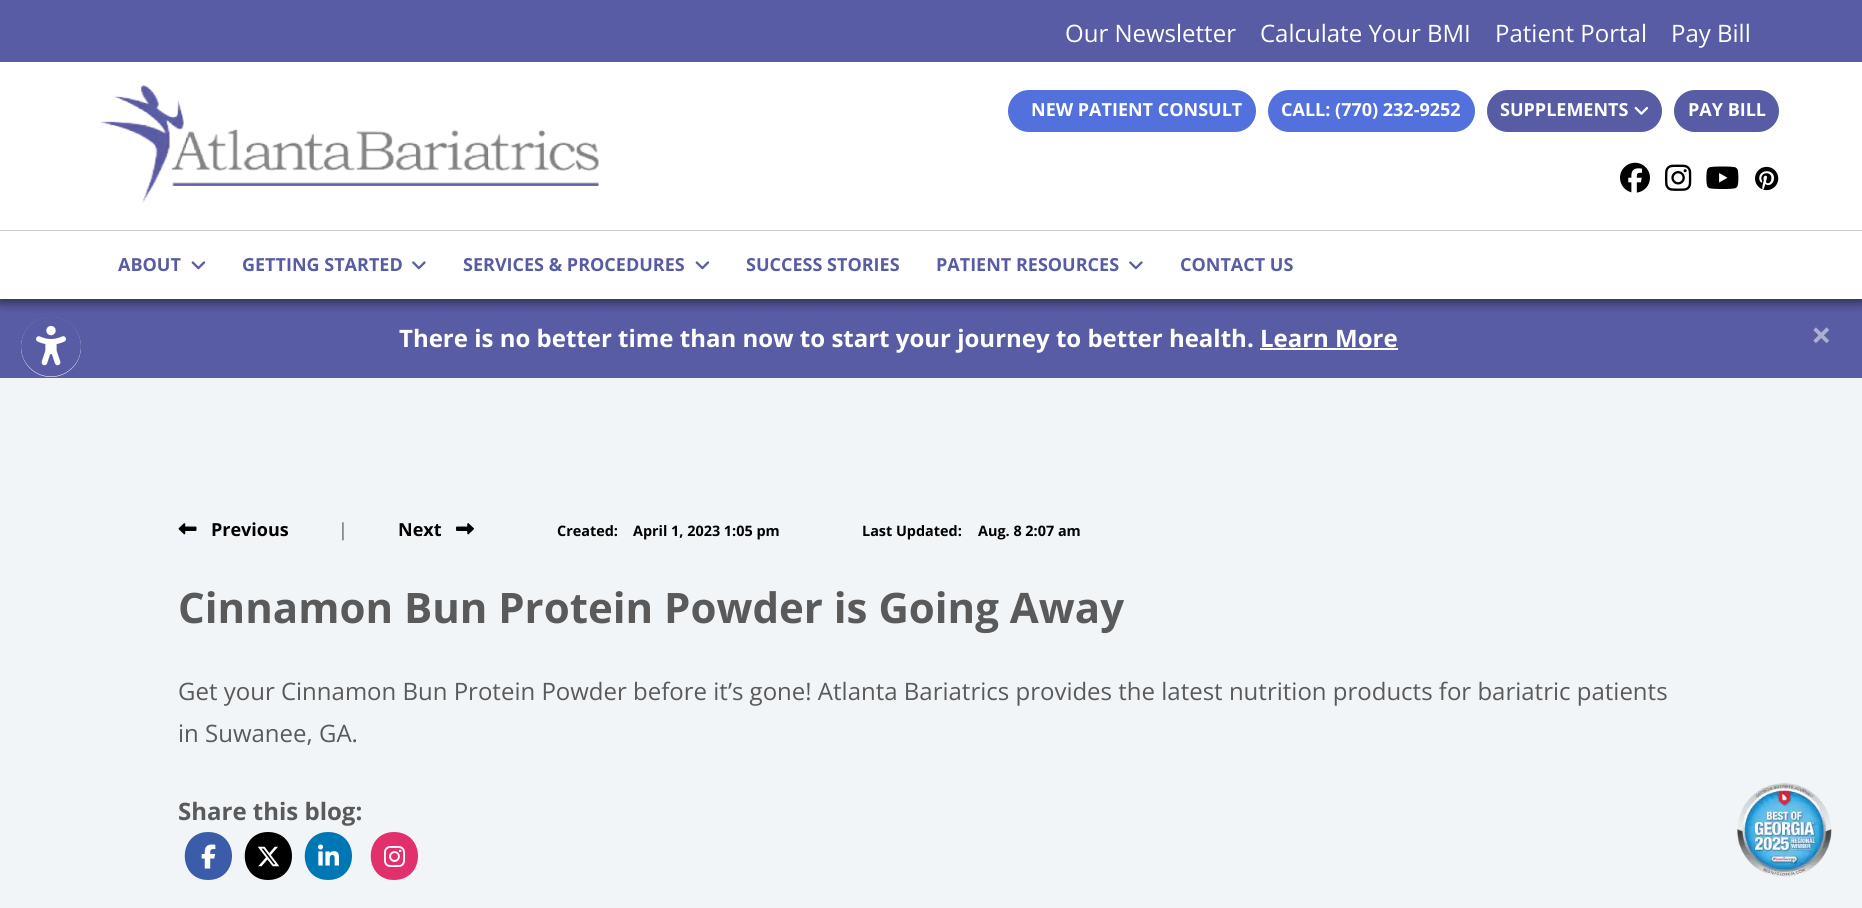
#include <cairo.h>
#include <math.h>
#include <stddef.h>


static void rgb(cairo_t *cr, int r, int g, int b)
{
	cairo_set_source_rgb(cr, r / 255.0, g / 255.0, b / 255.0);
}

static void face(cairo_t *cr, const char *family, double size, int italic, int bold)
{
	cairo_select_font_face(cr, family, italic ? CAIRO_FONT_SLANT_ITALIC : CAIRO_FONT_SLANT_NORMAL,
		bold ? CAIRO_FONT_WEIGHT_BOLD : CAIRO_FONT_WEIGHT_NORMAL);
	cairo_set_font_size(cr, size);
}

static void label(cairo_t *cr, double x, double y, const char *s)
{
	cairo_move_to(cr, x, y);
	cairo_show_text(cr, s);
}

static void rect(cairo_t *cr, double x, double y, double w, double h)
{
	cairo_rectangle(cr, x, y, w, h);
	cairo_fill(cr);
}

static void rrect(cairo_t *cr, double x, double y, double w, double h, double r)
{
	cairo_new_sub_path(cr);
	cairo_arc(cr, x + w - r, y + h - r, r, 0, M_PI / 2);
	cairo_arc(cr, x + r, y + h - r, r, M_PI / 2, M_PI);
	cairo_arc(cr, x + r, y + r, r, M_PI, 1.5 * M_PI);
	cairo_arc(cr, x + w - r, y + r, r, 1.5 * M_PI, 2 * M_PI);
	cairo_close_path(cr);
}

static void soft_shadow(cairo_t *cr, double x, double y, double w, double h, double r, double blur, double alpha)
{
	cairo_push_group_with_content(cr, CAIRO_CONTENT_ALPHA);
	cairo_set_operator(cr, CAIRO_OPERATOR_SOURCE);
	for (int i = 15; i >= -15 && fmin(w, h) + blur * i / 3 > 0; i -= 2) {
		double e = blur * i / 6;
		cairo_set_source_rgba(cr, 0, 0, 0, alpha * erfc((i - 1) / 8.5) / 2);
		rrect(cr, x - e, y - e, w + 2 * e, h + 2 * e, fmax(0, fmin(r + e + blur * .6, fmin(w, h) / 2 + e)));
		cairo_fill(cr);
	}
	cairo_pattern_t *soft = cairo_pop_group(cr);
	cairo_mask(cr, soft);
	cairo_pattern_destroy(soft);
}

static void image(cairo_t *cr, const char *path, double x, double y, double w, double h)
{
	cairo_surface_t *image = cairo_image_surface_create_from_png(path);
	cairo_save(cr);
	cairo_set_source_surface(cr, image, x, y);
	cairo_rectangle(cr, x, y, w, h);
	cairo_fill(cr);
	cairo_restore(cr);
	cairo_surface_destroy(image);
}

static void draw(cairo_t *cr) {
	rgb(cr, 255, 255, 255);
	cairo_paint(cr);
	rgb(cr, 88, 92, 164);
	rect(cr, 0, 299, 1862, 79);
	rgb(cr, 255, 255, 255);
	cairo_arc(cr, 51, 347, 30, 0, 2 * M_PI);
	cairo_fill(cr);
	image(cr, "image8.png", 21, 317, 60, 60);
	cairo_save(cr);
	cairo_rectangle(cr, 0, 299, 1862, 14);
	cairo_clip(cr);
	rgb(cr, 0, 0, 0);
	soft_shadow(cr, 0, 3, 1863, 299, 0, 6, 0.56);
	cairo_restore(cr);
	rgb(cr, 88, 92, 164);
	rect(cr, 0, 0, 1862, 62);
	face(cr, "Open Sans", 24, 0, 0);
	rgb(cr, 255, 255, 255);
	label(cr, 1065, 42, "Our Newsletter");
	label(cr, 1260, 42, "Calculate Your BMI");
	label(cr, 1495, 42, "Patient Portal");
	label(cr, 1671, 42, "Pay Bill");
	rgb(cr, 204, 204, 204);
	rect(cr, 0, 230, 1862, 1);
	image(cr, "image0.png", 100, 85, 499, 118);
	rgb(cr, 82, 113, 221);
	rrect(cr, 1009, 91, 246, 40, 20);
	cairo_fill_preserve(cr);
	cairo_stroke(cr);
	face(cr, "Open Sans", 18, 0, 1);
	rgb(cr, 255, 255, 255);
	label(cr, 1031, 116, "NEW PATIENT CONSULT");
	rgb(cr, 82, 113, 221);
	rrect(cr, 1269, 91, 205, 40, 20);
	cairo_fill_preserve(cr);
	cairo_stroke(cr);
	rgb(cr, 255, 255, 255);
	label(cr, 1281, 116, "CALL: (770) 232-9252");
	rgb(cr, 88, 92, 164);
	rrect(cr, 1488, 91, 173, 40, 20);
	cairo_fill_preserve(cr);
	cairo_stroke(cr);
	rgb(cr, 255, 255, 255);
	label(cr, 1500, 116, "SUPPLEMENTS");
	image(cr, "image1.png", 1634, 106, 15, 9);
	rgb(cr, 88, 92, 164);
	rrect(cr, 1675, 91, 103, 40, 20);
	cairo_fill_preserve(cr);
	cairo_stroke(cr);
	rgb(cr, 255, 255, 255);
	label(cr, 1688, 116, "PAY BILL");
	image(cr, "image2.png", 1620, 162, 30, 31);
	image(cr, "image3.png", 1665, 164, 27, 27);
	image(cr, "image4.png", 1706, 166, 33, 23);
	image(cr, "image5.png", 1755, 166, 24, 25);
	rect(cr, 0, 298, 1862, 1);
	rgb(cr, 88, 92, 164);
	label(cr, 118, 271, "ABOUT");
	image(cr, "image6.png", 191, 261, 15, 9);
	label(cr, 242, 271, "GETTING STARTED");
	image(cr, "image7.png", 412, 261, 14, 9);
	label(cr, 463, 271, "SERVICES & PROCEDURES");
	image(cr, "image6.png", 695, 261, 15, 9);
	label(cr, 746, 271, "SUCCESS STORIES");
	label(cr, 936, 271, "PATIENT RESOURCES");
	image(cr, "image7.png", 1129, 261, 14, 9);
	label(cr, 1180, 271, "CONTACT US");
	face(cr, "Open Sans", 24, 0, 1);
	rgb(cr, 255, 255, 255);
	label(cr, 399, 347, "There is no better time than now to start your journey to better health. Learn More");
	rect(cr, 1260, 348, 138, 2);
	face(cr, "Open Sans", 36, 0, 1);
	rgb(cr, 172, 174, 210);
	label(cr, 1811, 348, "×");
	rgb(cr, 242, 245, 248);
	rect(cr, 0, 378, 1862, 530);
	image(cr, "image9.png", 178, 523, 19, 12);
	face(cr, "Open Sans", 18, 0, 1);
	rgb(cr, 0, 0, 0);
	label(cr, 211, 536, "Previous");
	face(cr, "Open Sans", 18, 0, 0);
	rgb(cr, 90, 90, 90);
	label(cr, 338, 536, "|");
	face(cr, "Open Sans", 18, 0, 1);
	rgb(cr, 0, 0, 0);
	label(cr, 398, 536, "Next");
	image(cr, "image10.png", 456, 523, 18, 12);
	face(cr, "Open Sans", 14.4, 0, 1);
	label(cr, 557, 536, "Created:");
	label(cr, 633, 536, "April 1, 2023 1:05 pm");
	label(cr, 862, 536, "Last Updated:");
	label(cr, 978, 536, "Aug. 8 2:07 am");
	face(cr, "Open Sans", 42, 0, 1);
	rgb(cr, 90, 90, 90);
	label(cr, 178, 623, "Cinnamon Bun Protein Powder is Going Away");
	face(cr, "Open Sans", 24, 0, 0);
	label(cr, 178, 700, "Get your Cinnamon Bun Protein Powder before it’s gone! Atlanta Bariatrics provides the latest nutrition products for bariatric patients");
	label(cr, 178, 742, "in Suwanee, GA.");
	face(cr, "Open Sans", 24, 0, 1);
	label(cr, 178, 820, "Share this blog:");
	rgb(cr, 59, 92, 169);
	cairo_new_path(cr);
	cairo_move_to(cr, 208, 880);
	cairo_curve_to(cr, 240, 880, 240, 832, 208, 832);
	cairo_curve_to(cr, 177, 832, 177, 880, 208, 880);
	cairo_close_path(cr);
	cairo_fill(cr);
	image(cr, "image11.png", 201, 844, 15, 25);
	rgb(cr, 0, 0, 0);
	cairo_new_path(cr);
	cairo_move_to(cr, 268, 880);
	cairo_curve_to(cr, 300, 880, 300, 832, 268, 832);
	cairo_curve_to(cr, 237, 832, 237, 880, 268, 880);
	cairo_close_path(cr);
	cairo_fill(cr);
	image(cr, "image12.png", 257, 846, 23, 21);
	rgb(cr, 0, 119, 181);
	cairo_new_path(cr);
	cairo_move_to(cr, 328, 880);
	cairo_curve_to(cr, 360, 880, 360, 832, 328, 832);
	cairo_curve_to(cr, 297, 832, 297, 880, 328, 880);
	cairo_close_path(cr);
	cairo_fill(cr);
	image(cr, "image13.png", 318, 844, 21, 22);
	rgb(cr, 225, 48, 108);
	cairo_new_path(cr);
	cairo_move_to(cr, 394, 880);
	cairo_curve_to(cr, 426, 880, 426, 832, 394, 832);
	cairo_curve_to(cr, 363, 832, 363, 880, 394, 880);
	cairo_close_path(cr);
	cairo_fill(cr);
	image(cr, "image14.png", 384, 846, 21, 21);
	image(cr, "image15.png", 1737, 783, 95, 94);
}

int main(void) {
	cairo_surface_t *surface = cairo_image_surface_create(CAIRO_FORMAT_RGB24, 1862, 908);
	cairo_t *cr = cairo_create(surface);
	cairo_font_options_t *options = cairo_font_options_create();
	cairo_font_options_set_hint_metrics(options, CAIRO_HINT_METRICS_OFF);
	cairo_font_options_set_hint_style(options, CAIRO_HINT_STYLE_NONE);
	cairo_set_font_options(cr, options);
	cairo_set_miter_limit(cr, 4);
	draw(cr);
	cairo_surface_write_to_png(surface, "render.png");
	cairo_font_options_destroy(options);
	cairo_destroy(cr);
	cairo_surface_destroy(surface);
	return 0;
}
